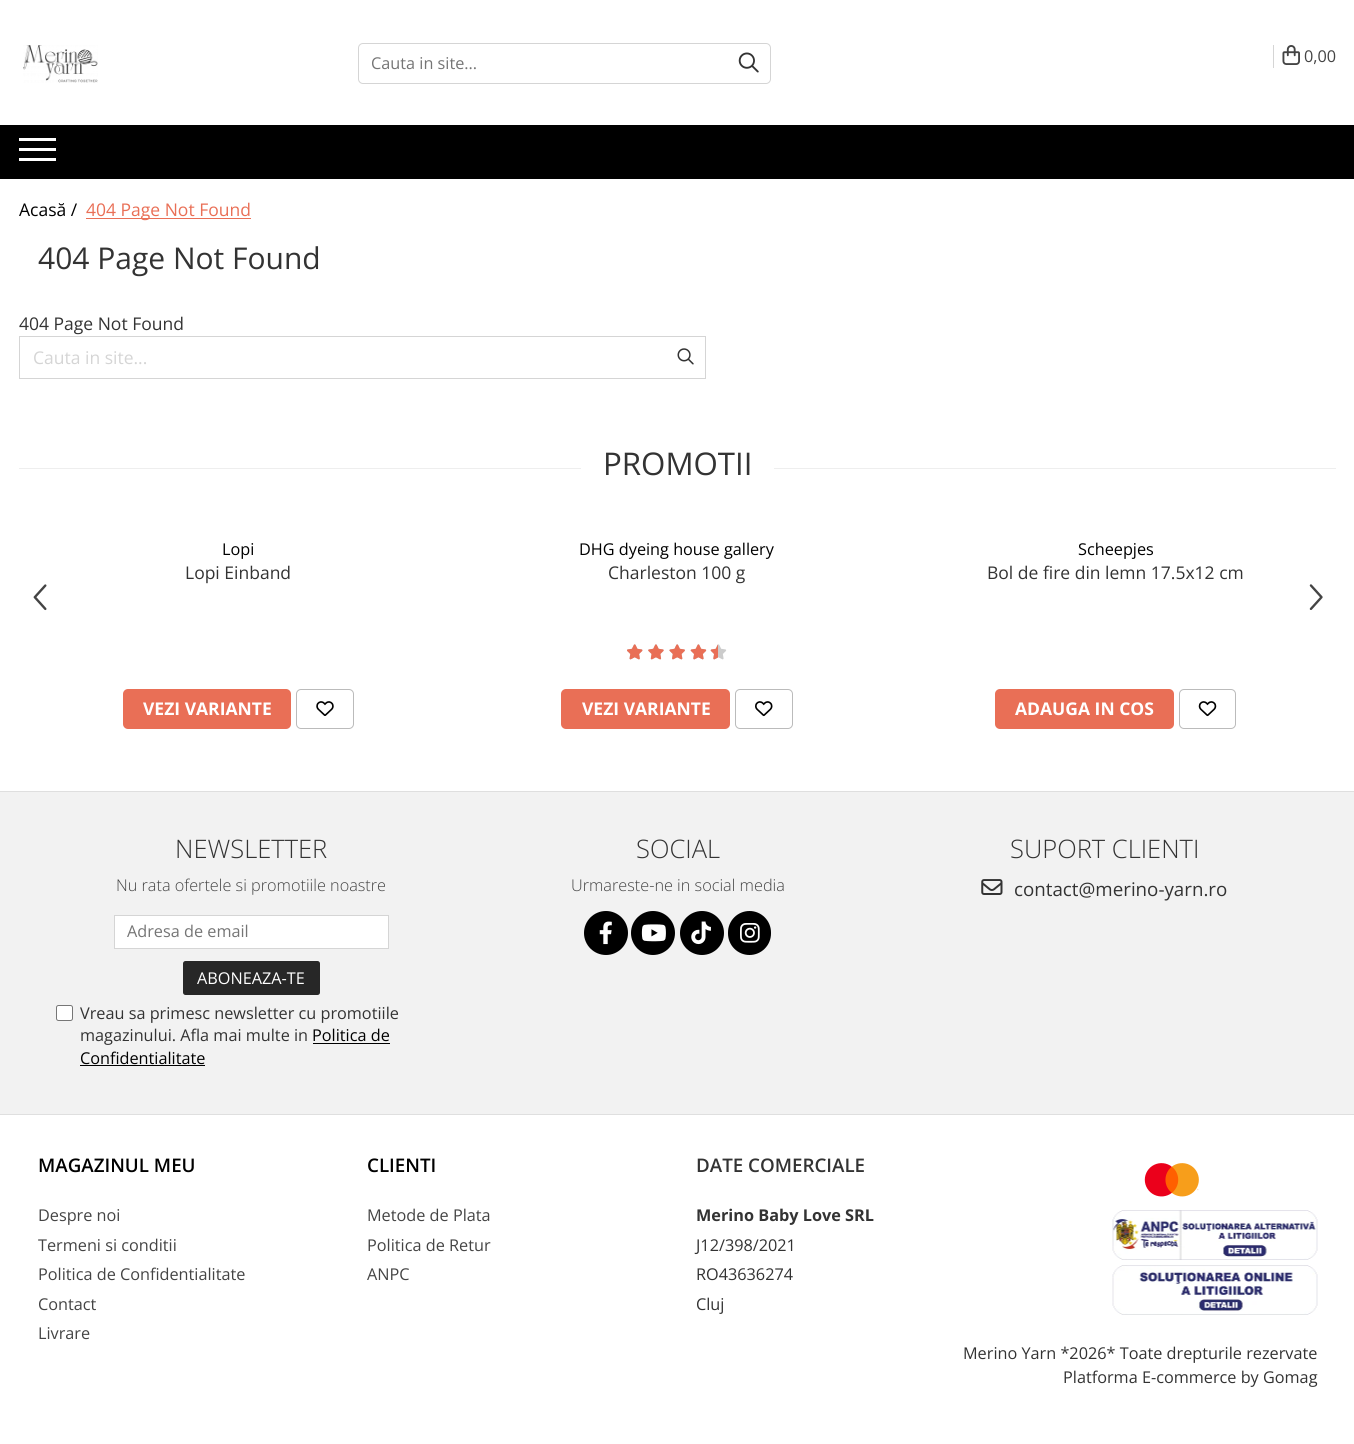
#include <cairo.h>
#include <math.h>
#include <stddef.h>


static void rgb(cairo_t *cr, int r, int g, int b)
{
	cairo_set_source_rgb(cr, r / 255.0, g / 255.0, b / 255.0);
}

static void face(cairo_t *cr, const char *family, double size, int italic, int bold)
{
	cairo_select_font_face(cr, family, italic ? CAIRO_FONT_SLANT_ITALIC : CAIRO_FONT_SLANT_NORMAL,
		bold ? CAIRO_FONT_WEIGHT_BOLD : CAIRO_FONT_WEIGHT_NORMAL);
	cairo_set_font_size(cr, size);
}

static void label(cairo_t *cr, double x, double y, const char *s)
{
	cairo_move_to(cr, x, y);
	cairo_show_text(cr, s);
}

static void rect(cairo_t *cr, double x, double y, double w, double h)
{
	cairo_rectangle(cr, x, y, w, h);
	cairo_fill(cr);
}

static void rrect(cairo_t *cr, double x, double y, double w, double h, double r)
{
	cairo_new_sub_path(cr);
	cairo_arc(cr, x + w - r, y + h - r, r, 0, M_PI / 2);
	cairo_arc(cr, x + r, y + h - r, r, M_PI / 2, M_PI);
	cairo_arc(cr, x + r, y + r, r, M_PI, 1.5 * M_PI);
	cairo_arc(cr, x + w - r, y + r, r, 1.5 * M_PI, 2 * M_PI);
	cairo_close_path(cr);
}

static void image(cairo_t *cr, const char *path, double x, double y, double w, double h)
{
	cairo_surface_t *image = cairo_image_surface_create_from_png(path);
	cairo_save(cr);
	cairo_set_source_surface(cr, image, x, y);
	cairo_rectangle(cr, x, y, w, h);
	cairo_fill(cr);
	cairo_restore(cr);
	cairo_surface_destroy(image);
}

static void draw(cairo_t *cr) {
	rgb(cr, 255, 255, 255);
	cairo_paint(cr);
	image(cr, "image0.png", 23, 45, 75, 38);
	rrect(cr, 358.5, 43.5, 412, 40, 4.5);
	rgb(cr, 213, 213, 213);
	cairo_set_line_width(cr, 1);
	cairo_stroke(cr);
	face(cr, "Open Sans", 16.25, 0, 0);
	rgb(cr, 117, 117, 117);
	label(cr, 371, 69, "Cauta in site...");
	image(cr, "image1.png", 738, 52, 21, 21);
	rgb(cr, 213, 213, 213);
	rect(cr, 1273, 45, 1, 23);
	image(cr, "image2.png", 1282, 45, 18, 20);
	rgb(cr, 68, 68, 68);
	label(cr, 1304, 62, "0,00");
	rgb(cr, 0, 0, 0);
	rect(cr, 0, 125, 1354, 54);
	rgb(cr, 255, 255, 255);
	rect(cr, 19, 148, 37, 3);
	rect(cr, 19, 138, 37, 3);
	rect(cr, 19, 158, 37, 3);
	face(cr, "Open Sans", 17.5, 0, 0);
	rgb(cr, 0, 0, 0);
	label(cr, 19, 216, "Acasă /");
	rgb(cr, 233, 111, 86);
	rect(cr, 86, 218, 165, 1);
	label(cr, 86, 216, "404 Page Not Found");
	face(cr, "Open Sans", 30, 0, 0);
	rgb(cr, 51, 51, 51);
	label(cr, 38, 269, "404 Page Not Found");
	face(cr, "Open Sans", 17.5, 0, 0);
	label(cr, 19, 330, "404 Page Not Found");
	cairo_rectangle(cr, 19.5, 336.5, 686, 42);
	rgb(cr, 213, 213, 213);
	cairo_stroke(cr);
	label(cr, 33, 364, "Cauta in site...");
	image(cr, "image3.png", 677, 348, 17, 17);
	rgb(cr, 238, 238, 238);
	rect(cr, 19, 468, 1317, 1);
	rgb(cr, 255, 255, 255);
	rect(cr, 581, 468, 193, 1);
	face(cr, "Open Sans", 31.25, 0, 0);
	rgb(cr, 51, 51, 51);
	label(cr, 603, 475, "PROMOTII");
	face(cr, "Open Sans", 16.25, 0, 0);
	rgb(cr, 0, 0, 0);
	label(cr, 222, 555, "Lopi");
	face(cr, "Open Sans", 17.5, 0, 0);
	rgb(cr, 51, 51, 51);
	label(cr, 185, 579, "Lopi Einband");
	rgb(cr, 233, 111, 86);
	rrect(cr, 123, 689, 168, 40, 5);
	cairo_fill(cr);
	face(cr, "Open Sans", 17.5, 0, 1);
	rgb(cr, 255, 255, 255);
	label(cr, 143, 715, "VEZI VARIANTE");
	rrect(cr, 296.5, 689.5, 57, 39, 4.5);
	rgb(cr, 187, 187, 187);
	cairo_stroke(cr);
	image(cr, "image4.png", 316, 701, 18, 15);
	face(cr, "Open Sans", 16.25, 0, 0);
	rgb(cr, 0, 0, 0);
	label(cr, 579, 555, "DHG dyeing house gallery");
	face(cr, "Open Sans", 17.5, 0, 0);
	rgb(cr, 51, 51, 51);
	label(cr, 608, 579, "Charleston 100 g");
	image(cr, "image5.png", 627, 644, 16, 16);
	image(cr, "image6.png", 627, 644, 16, 16);
	image(cr, "image11.png", 648, 644, 16, 16);
	image(cr, "image7.png", 648, 644, 16, 16);
	image(cr, "image12.png", 669, 644, 16, 16);
	image(cr, "image8.png", 669, 644, 16, 16);
	image(cr, "image13.png", 690, 644, 17, 16);
	image(cr, "image9.png", 690, 644, 17, 16);
	image(cr, "image13.png", 710, 644, 17, 16);
	image(cr, "image10.png", 710, 644, 8, 16);
	rgb(cr, 233, 111, 86);
	rrect(cr, 561, 689, 169, 40, 5);
	cairo_fill(cr);
	face(cr, "Open Sans", 17.5, 0, 1);
	rgb(cr, 255, 255, 255);
	label(cr, 582, 715, "VEZI VARIANTE");
	rrect(cr, 735.5, 689.5, 57, 39, 4.5);
	rgb(cr, 187, 187, 187);
	cairo_stroke(cr);
	image(cr, "image14.png", 755, 701, 18, 16);
	face(cr, "Open Sans", 16.25, 0, 0);
	rgb(cr, 0, 0, 0);
	label(cr, 1078, 555, "Scheepjes");
	face(cr, "Open Sans", 17.5, 0, 0);
	rgb(cr, 51, 51, 51);
	label(cr, 987, 579, "Bol de fire din lemn 17.5x12 cm");
	rgb(cr, 233, 111, 86);
	rrect(cr, 995, 689, 179, 40, 5);
	cairo_fill(cr);
	face(cr, "Open Sans", 17.5, 0, 1);
	rgb(cr, 255, 255, 255);
	label(cr, 1015, 715, "ADAUGA IN COS");
	rrect(cr, 1179.5, 689.5, 56, 39, 4.5);
	rgb(cr, 187, 187, 187);
	cairo_stroke(cr);
	image(cr, "image15.png", 1198, 701, 19, 16);
	image(cr, "image16.png", 33, 584, 14, 27);
	image(cr, "image17.png", 1309, 584, 14, 26);
	rgb(cr, 242, 242, 242);
	rect(cr, 0, 792, 1354, 322);
	rgb(cr, 223, 223, 223);
	rect(cr, 0, 791, 1354, 1);
	rect(cr, 0, 1114, 1354, 1);
	face(cr, "Open Sans Light", 25.5, 0, 0);
	rgb(cr, 51, 51, 51);
	label(cr, 175, 858, "NEWSLETTER");
	face(cr, "Open Sans Light", 16.25, 0, 0);
	rgb(cr, 68, 68, 68);
	label(cr, 116, 891, "Nu rata ofertele si promotiile noastre");
	rgb(cr, 255, 255, 255);
	cairo_rectangle(cr, 114.5, 915.5, 274, 33);
	cairo_fill_preserve(cr);
	rgb(cr, 213, 213, 213);
	cairo_stroke(cr);
	face(cr, "Open Sans", 16.25, 0, 0);
	rgb(cr, 117, 117, 117);
	label(cr, 127, 937, "Adresa de email");
	rgb(cr, 39, 39, 39);
	rrect(cr, 183, 961, 137, 34, 2.5);
	cairo_fill(cr);
	rgb(cr, 255, 255, 255);
	label(cr, 197, 984, "ABONEAZA-TE");
	rrect(cr, 56.5, 1005.5, 16, 15, 2);
	cairo_fill_preserve(cr);
	rgb(cr, 118, 118, 118);
	cairo_stroke(cr);
	rgb(cr, 51, 51, 51);
	label(cr, 80, 1019, "Vreau sa primesc newsletter cu promotiile");
	label(cr, 80, 1041, "magazinului. Afla mai multe in");
	rgb(cr, 0, 0, 0);
	label(cr, 312, 1041, "Politica de");
	rect(cr, 313, 1043, 77, 1);
	label(cr, 80, 1064, "Confidentialitate");
	rect(cr, 80, 1065, 125, 1);
	face(cr, "Open Sans Light", 25.5, 0, 0);
	rgb(cr, 51, 51, 51);
	label(cr, 636, 858, "SOCIAL");
	face(cr, "Open Sans Light", 16.25, 0, 0);
	rgb(cr, 68, 68, 68);
	label(cr, 571, 891, "Urmareste-ne in social media");
	rgb(cr, 0, 0, 0);
	cairo_new_path(cr);
	cairo_arc(cr, 606, 933, 22, 0, 2 * M_PI);
	cairo_fill(cr);
	image(cr, "image18.png", 599, 921, 13, 24);
	cairo_arc(cr, 653, 933, 22, 0, 2 * M_PI);
	cairo_fill(cr);
	image(cr, "image19.png", 641, 924, 25, 18);
	cairo_arc(cr, 702, 933, 22, 0, 2 * M_PI);
	cairo_fill(cr);
	image(cr, "image20.png", 691, 921, 20, 24);
	rrect(cr, 728, 911, 43, 44, 21.5);
	cairo_fill(cr);
	image(cr, "image21.png", 740, 923, 20, 20);
	face(cr, "Open Sans Light", 25.5, 0, 0);
	rgb(cr, 51, 51, 51);
	label(cr, 1010, 858, "SUPORT CLIENTI");
	image(cr, "image22.png", 981, 879, 22, 16);
	face(cr, "Open Sans", 18.75, 0, 0);
	label(cr, 1014, 896, "contact@merino-yarn.ro");
	face(cr, "Open Sans SemiBold", 18.75, 0, 0);
	rgb(cr, 0, 0, 0);
	label(cr, 38, 1172, "MAGAZINUL MEU");
	face(cr, "Open Sans", 16.25, 0, 0);
	rgb(cr, 68, 68, 68);
	label(cr, 38, 1221, "Despre noi");
	label(cr, 38, 1251, "Termeni si conditii");
	label(cr, 38, 1280, "Politica de Confidentialitate");
	label(cr, 38, 1310, "Contact");
	label(cr, 38, 1339, "Livrare");
	face(cr, "Open Sans SemiBold", 18.75, 0, 0);
	rgb(cr, 0, 0, 0);
	label(cr, 367, 1172, "CLIENTI");
	face(cr, "Open Sans", 16.25, 0, 0);
	rgb(cr, 68, 68, 68);
	label(cr, 367, 1221, "Metode de Plata");
	label(cr, 367, 1251, "Politica de Retur");
	label(cr, 367, 1280, "ANPC");
	face(cr, "Open Sans SemiBold", 18.75, 0, 0);
	rgb(cr, 51, 51, 51);
	label(cr, 696, 1172, "DATE COMERCIALE");
	face(cr, "Open Sans", 16.25, 0, 1);
	label(cr, 696, 1221, "Merino Baby Love SRL");
	face(cr, "Open Sans", 16.25, 0, 0);
	label(cr, 696, 1251, "J12/398/2021");
	label(cr, 696, 1280, "RO43636274");
	label(cr, 696, 1310, "Cluj");
	image(cr, "image23.png", 1144, 1163, 55, 34);
	image(cr, "image24.png", 1112, 1210, 206, 50);
	image(cr, "image25.png", 1112, 1265, 206, 50);
	label(cr, 963, 1359, "Merino Yarn *2026* Toate drepturile rezervate");
	label(cr, 1063, 1383, "Platforma E-commerce by Gomag");
}

int main(void) {
	cairo_surface_t *surface = cairo_image_surface_create(CAIRO_FORMAT_RGB24, 1354, 1444);
	cairo_t *cr = cairo_create(surface);
	cairo_font_options_t *options = cairo_font_options_create();
	cairo_font_options_set_hint_metrics(options, CAIRO_HINT_METRICS_OFF);
	cairo_font_options_set_hint_style(options, CAIRO_HINT_STYLE_NONE);
	cairo_set_font_options(cr, options);
	cairo_set_miter_limit(cr, 4);
	draw(cr);
	cairo_surface_write_to_png(surface, "render.png");
	cairo_font_options_destroy(options);
	cairo_destroy(cr);
	cairo_surface_destroy(surface);
	return 0;
}
